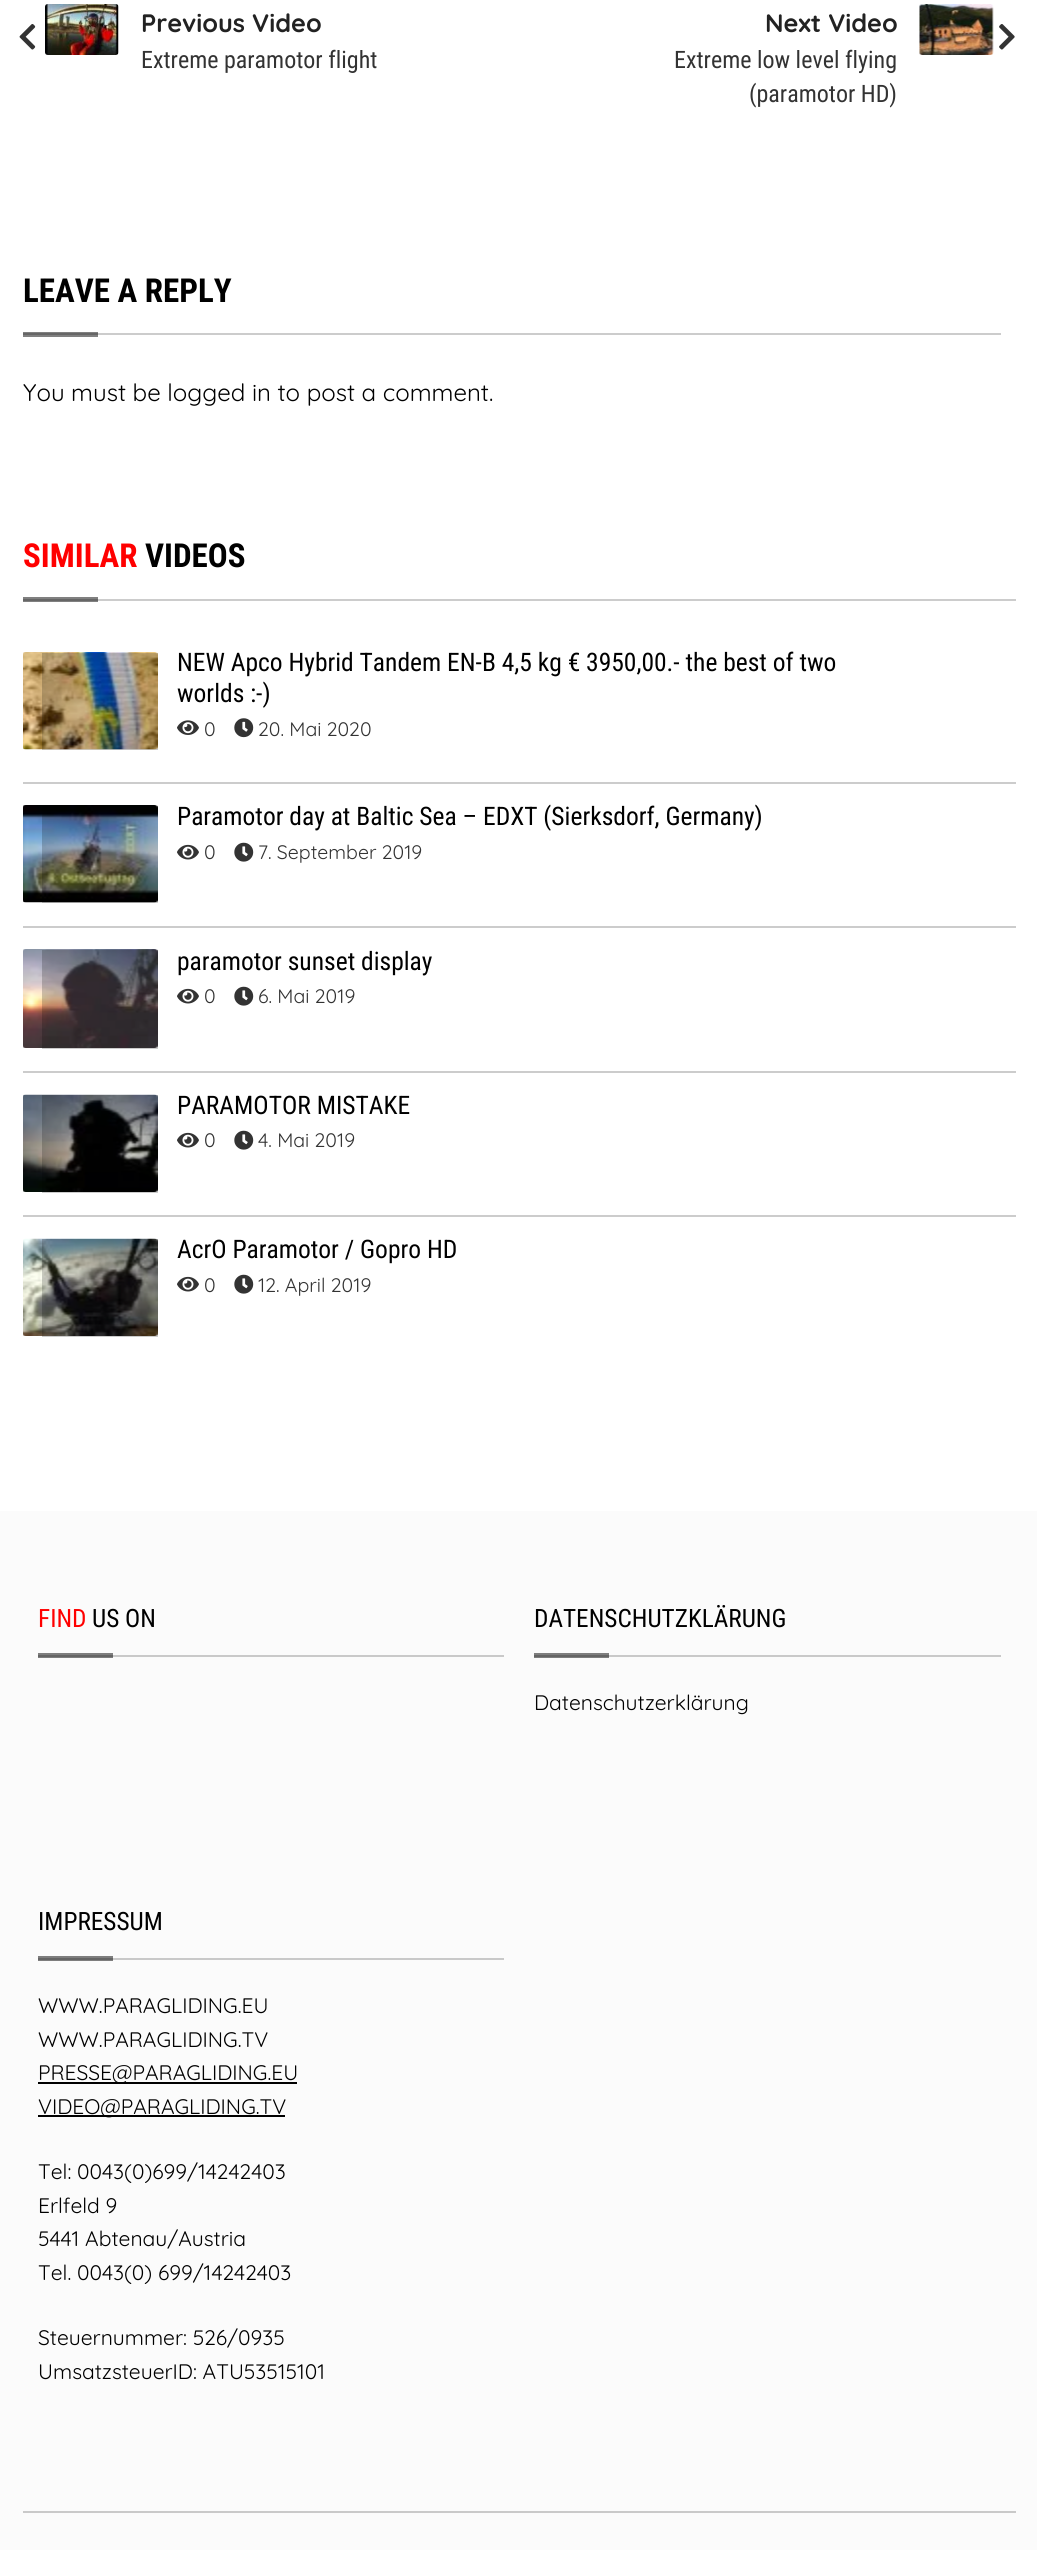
#include <cairo.h>
#include <math.h>
#include <stddef.h>


static void rgb(cairo_t *cr, int r, int g, int b)
{
	cairo_set_source_rgb(cr, r / 255.0, g / 255.0, b / 255.0);
}

static void face(cairo_t *cr, const char *family, double size, int italic, int bold)
{
	cairo_select_font_face(cr, family, italic ? CAIRO_FONT_SLANT_ITALIC : CAIRO_FONT_SLANT_NORMAL,
		bold ? CAIRO_FONT_WEIGHT_BOLD : CAIRO_FONT_WEIGHT_NORMAL);
	cairo_set_font_size(cr, size);
}

static void label(cairo_t *cr, double x, double y, const char *s)
{
	cairo_move_to(cr, x, y);
	cairo_show_text(cr, s);
}

static void rect(cairo_t *cr, double x, double y, double w, double h)
{
	cairo_rectangle(cr, x, y, w, h);
	cairo_fill(cr);
}

static void image(cairo_t *cr, const char *path, double x, double y, double w, double h)
{
	cairo_surface_t *image = cairo_image_surface_create_from_png(path);
	cairo_save(cr);
	cairo_set_source_surface(cr, image, x, y);
	cairo_rectangle(cr, x, y, w, h);
	cairo_fill(cr);
	cairo_restore(cr);
	cairo_surface_destroy(image);
}

static void draw(cairo_t *cr) {
	rgb(cr, 255, 255, 255);
	cairo_paint(cr);
	rgb(cr, 128, 128, 128);
	rect(cr, 23, 597, 75, 5);
	rect(cr, 23, 332, 75, 5);
	image(cr, "image0.png", 19, 24, 17, 26);
	image(cr, "image1.png", 45, 4, 74, 51);
	face(cr, "Quicksand", 25.25, 0, 1);
	rgb(cr, 34, 34, 34);
	label(cr, 141, 32, "Previous Video");
	face(cr, "Roboto Condensed", 24, 0, 0);
	rgb(cr, 51, 51, 51);
	label(cr, 141, 68, "Extreme paramotor flight");
	face(cr, "Quicksand", 25.25, 0, 1);
	rgb(cr, 34, 34, 34);
	label(cr, 765, 32, "Next Video");
	face(cr, "Roboto Condensed", 24, 0, 0);
	rgb(cr, 51, 51, 51);
	label(cr, 674, 68, "Extreme low level flying");
	label(cr, 749, 102, "(paramotor HD)");
	image(cr, "image2.png", 919, 4, 75, 51);
	image(cr, "image3.png", 999, 24, 16, 26);
	rgb(cr, 204, 204, 204);
	rect(cr, 98, 333, 903, 2);
	rgb(cr, 102, 102, 102);
	rect(cr, 23, 333, 75, 2);
	face(cr, "Roboto Condensed", 33, 0, 1);
	rgb(cr, 0, 0, 0);
	label(cr, 23, 302, "LEAVE A REPLY");
	face(cr, "Quicksand", 24, 0, 0);
	label(cr, 23, 401, "You must be logged in to post a comment.");
	rgb(cr, 204, 204, 204);
	rect(cr, 98, 599, 918, 2);
	rgb(cr, 102, 102, 102);
	rect(cr, 23, 599, 75, 2);
	face(cr, "Roboto Condensed", 33, 0, 1);
	rgb(cr, 255, 0, 0);
	label(cr, 23, 567, "SIMILAR");
	rgb(cr, 0, 0, 0);
	label(cr, 145, 567, "VIDEOS");
	rgb(cr, 204, 204, 204);
	rect(cr, 23, 782, 993, 2);
	image(cr, "image4.png", 23, 652, 135, 98);
	cairo_set_source_rgba(cr, 0, 0, 0, 0.2);
	rect(cr, 42, 653, 116, 97);
	face(cr, "Roboto Condensed", 25.5, 0, 0);
	rgb(cr, 0, 0, 0);
	label(cr, 177, 671, "NEW Apco Hybrid Tandem EN-B 4,5 kg € 3950,00.- the best of two");
	label(cr, 177, 702, "worlds :-)");
	image(cr, "image5.png", 177, 720, 22, 15);
	face(cr, "Quicksand", 19.5, 0, 0);
	rgb(cr, 51, 51, 51);
	label(cr, 204, 736, "0");
	image(cr, "image6.png", 234, 718, 20, 20);
	label(cr, 258, 736, "20. Mai 2020");
	rgb(cr, 204, 204, 204);
	rect(cr, 23, 926, 993, 2);
	image(cr, "image7.png", 23, 805, 135, 98);
	cairo_set_source_rgba(cr, 0, 0, 0, 0.2);
	rect(cr, 42, 806, 116, 97);
	face(cr, "Roboto Condensed", 25.5, 0, 0);
	rgb(cr, 0, 0, 0);
	label(cr, 177, 825, "Paramotor day at Baltic Sea – EDXT (Sierksdorf, Germany)");
	image(cr, "image8.png", 177, 844, 22, 16);
	face(cr, "Quicksand", 19.5, 0, 0);
	rgb(cr, 51, 51, 51);
	label(cr, 204, 859, "0");
	image(cr, "image9.png", 234, 842, 20, 20);
	label(cr, 258, 859, "7. September 2019");
	rgb(cr, 204, 204, 204);
	rect(cr, 23, 1071, 993, 2);
	image(cr, "image10.png", 23, 949, 135, 99);
	cairo_set_source_rgba(cr, 0, 0, 0, 0.2);
	rect(cr, 42, 950, 116, 99);
	face(cr, "Roboto Condensed", 25.5, 0, 0);
	rgb(cr, 0, 0, 0);
	label(cr, 177, 970, "paramotor sunset display");
	image(cr, "image8.png", 177, 988, 22, 16);
	face(cr, "Quicksand", 19.5, 0, 0);
	rgb(cr, 51, 51, 51);
	label(cr, 204, 1003, "0");
	image(cr, "image9.png", 234, 986, 20, 20);
	label(cr, 258, 1003, "6. Mai 2019");
	rgb(cr, 204, 204, 204);
	rect(cr, 23, 1215, 993, 2);
	image(cr, "image11.png", 23, 1094, 135, 98);
	cairo_set_source_rgba(cr, 0, 0, 0, 0.2);
	rect(cr, 42, 1095, 116, 98);
	face(cr, "Roboto Condensed", 25.5, 0, 0);
	rgb(cr, 0, 0, 0);
	label(cr, 177, 1114, "PARAMOTOR MISTAKE");
	image(cr, "image8.png", 177, 1132, 22, 16);
	face(cr, "Quicksand", 19.5, 0, 0);
	rgb(cr, 51, 51, 51);
	label(cr, 204, 1147, "0");
	image(cr, "image9.png", 234, 1130, 20, 20);
	label(cr, 258, 1147, "4. Mai 2019");
	image(cr, "image12.png", 23, 1238, 135, 98);
	cairo_set_source_rgba(cr, 0, 0, 0, 0.2);
	rect(cr, 42, 1239, 116, 98);
	face(cr, "Roboto Condensed", 25.5, 0, 0);
	rgb(cr, 0, 0, 0);
	label(cr, 177, 1258, "AcrO Paramotor / Gopro HD");
	image(cr, "image8.png", 177, 1276, 22, 16);
	face(cr, "Quicksand", 19.5, 0, 0);
	rgb(cr, 51, 51, 51);
	label(cr, 204, 1292, "0");
	image(cr, "image9.png", 234, 1274, 20, 20);
	label(cr, 258, 1292, "12. April 2019");
	rgb(cr, 251, 251, 251);
	rect(cr, 0, 1511, 1037, 1039);
	rgb(cr, 126, 126, 126);
	rect(cr, 38, 1956, 75, 5);
	rect(cr, 534, 1653, 75, 5);
	rect(cr, 38, 1653, 75, 5);
	rgb(cr, 201, 201, 201);
	rect(cr, 113, 1655, 391, 2);
	rgb(cr, 101, 101, 101);
	rect(cr, 38, 1655, 75, 2);
	face(cr, "Roboto Condensed", 25.25, 0, 0);
	rgb(cr, 255, 0, 0);
	label(cr, 38, 1627, "FIND");
	rgb(cr, 0, 0, 0);
	label(cr, 92, 1627, "US ON");
	rgb(cr, 201, 201, 201);
	rect(cr, 609, 1655, 392, 2);
	rgb(cr, 101, 101, 101);
	rect(cr, 534, 1655, 75, 2);
	rgb(cr, 0, 0, 0);
	label(cr, 534, 1627, "DATENSCHUTZKLÄRUNG");
	face(cr, "Quicksand", 21, 0, 0);
	label(cr, 534, 1710, "Datenschutzerklärung");
	rgb(cr, 201, 201, 201);
	rect(cr, 113, 1958, 391, 2);
	rgb(cr, 101, 101, 101);
	rect(cr, 38, 1958, 75, 2);
	face(cr, "Roboto Condensed", 25.25, 0, 0);
	rgb(cr, 0, 0, 0);
	label(cr, 38, 1930, "IMPRESSUM");
	face(cr, "Quicksand", 21, 0, 0);
	label(cr, 38, 2013, "WWW.PARAGLIDING.EU");
	label(cr, 38, 2047, "WWW.PARAGLIDING.TV");
	rect(cr, 38, 2082, 259, 2);
	label(cr, 38, 2080, "PRESSE@PARAGLIDING.EU");
	rect(cr, 38, 2115, 247, 2);
	label(cr, 38, 2114, "VIDEO@PARAGLIDING.TV");
	label(cr, 38, 2179, "Tel: 0043(0)699/14242403");
	label(cr, 38, 2213, "Erlfeld 9");
	label(cr, 38, 2246, "5441 Abtenau/Austria");
	label(cr, 38, 2280, "Tel. 0043(0) 699/14242403");
	label(cr, 38, 2345, "Steuernummer: 526/0935");
	label(cr, 38, 2379, "UmsatzsteuerID: ATU53515101");
	rgb(cr, 201, 201, 201);
	rect(cr, 23, 2511, 993, 2);
}

int main(void) {
	cairo_surface_t *surface = cairo_image_surface_create(CAIRO_FORMAT_RGB24, 1037, 2550);
	cairo_t *cr = cairo_create(surface);
	cairo_font_options_t *options = cairo_font_options_create();
	cairo_font_options_set_hint_metrics(options, CAIRO_HINT_METRICS_OFF);
	cairo_font_options_set_hint_style(options, CAIRO_HINT_STYLE_NONE);
	cairo_set_font_options(cr, options);
	cairo_set_miter_limit(cr, 4);
	draw(cr);
	cairo_surface_write_to_png(surface, "render.png");
	cairo_font_options_destroy(options);
	cairo_destroy(cr);
	cairo_surface_destroy(surface);
	return 0;
}
